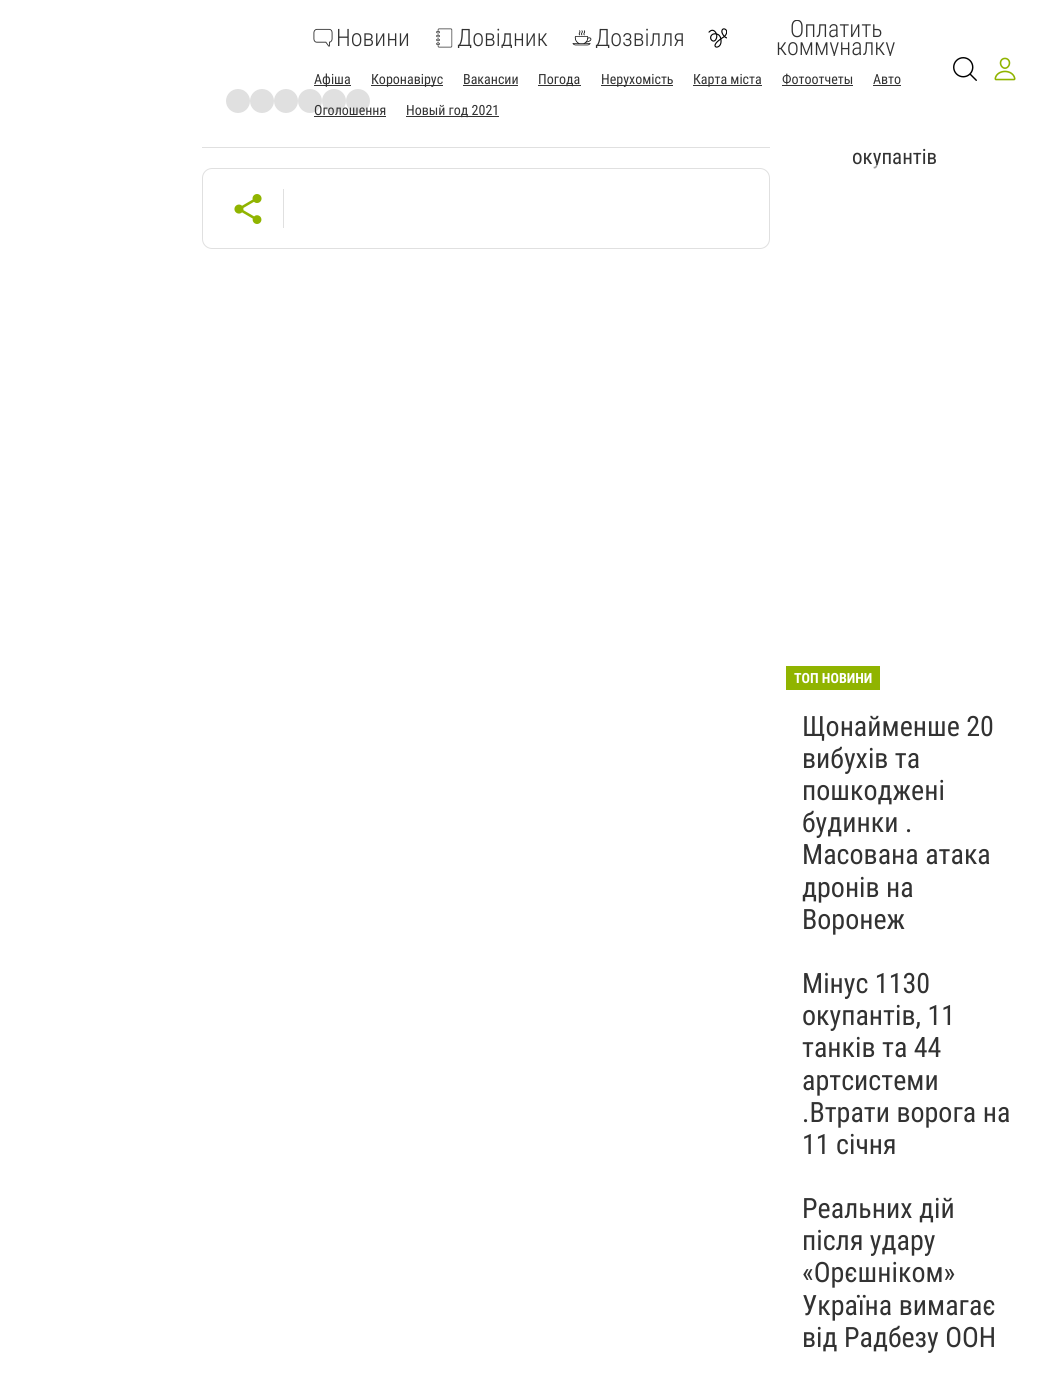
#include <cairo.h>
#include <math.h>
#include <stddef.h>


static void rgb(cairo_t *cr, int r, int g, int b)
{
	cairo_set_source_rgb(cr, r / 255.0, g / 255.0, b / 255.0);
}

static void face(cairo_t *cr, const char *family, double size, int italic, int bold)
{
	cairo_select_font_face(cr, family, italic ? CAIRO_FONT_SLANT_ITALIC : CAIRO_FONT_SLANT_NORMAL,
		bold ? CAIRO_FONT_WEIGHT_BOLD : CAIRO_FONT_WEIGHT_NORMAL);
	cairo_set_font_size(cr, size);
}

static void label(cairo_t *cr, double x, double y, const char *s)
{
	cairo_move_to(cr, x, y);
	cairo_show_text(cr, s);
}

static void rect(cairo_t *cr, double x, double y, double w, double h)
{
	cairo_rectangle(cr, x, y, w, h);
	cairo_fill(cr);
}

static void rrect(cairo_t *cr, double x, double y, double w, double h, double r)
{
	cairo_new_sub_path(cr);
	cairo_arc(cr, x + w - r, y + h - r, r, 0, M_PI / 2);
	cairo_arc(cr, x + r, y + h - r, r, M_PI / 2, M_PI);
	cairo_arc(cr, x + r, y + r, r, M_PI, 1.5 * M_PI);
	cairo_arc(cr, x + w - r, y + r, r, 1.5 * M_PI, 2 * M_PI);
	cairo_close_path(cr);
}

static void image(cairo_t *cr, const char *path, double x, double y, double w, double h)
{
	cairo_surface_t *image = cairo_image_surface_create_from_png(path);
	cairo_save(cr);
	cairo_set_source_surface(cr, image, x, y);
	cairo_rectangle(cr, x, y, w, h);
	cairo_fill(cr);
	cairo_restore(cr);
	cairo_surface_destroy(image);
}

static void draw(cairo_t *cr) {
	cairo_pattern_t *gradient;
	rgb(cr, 255, 255, 255);
	cairo_paint(cr);
	image(cr, "image0.png", 313, 28, 20, 19);
	face(cr, "Roboto Condensed Light", 24, 0, 0);
	rgb(cr, 50, 50, 50);
	label(cr, 336, 46, "Новини");
	image(cr, "image1.png", 436, 28, 17, 20);
	cairo_save(cr);
	cairo_rectangle(cr, 434, 28, 114, 20);
	cairo_clip(cr);
	label(cr, 457, 46, "Довідник");
	cairo_restore(cr);
	image(cr, "image2.png", 572, 30, 20, 16);
	cairo_save(cr);
	cairo_rectangle(cr, 572, 28, 112, 20);
	cairo_clip(cr);
	label(cr, 595, 46, "Дозвілля");
	cairo_restore(cr);
	image(cr, "image3.png", 708, 28, 19, 20);
	cairo_save(cr);
	cairo_rectangle(cr, 708, 20, 233, 36);
	cairo_clip(cr);
	label(cr, 790, 37, "Оплатить");
	label(cr, 776, 55, "коммуналку");
	cairo_restore(cr);
	rect(cr, 314, 85, 37, 1);
	face(cr, "Roboto Condensed", 14, 0, 0);
	label(cr, 314, 84, "Афіша");
	rect(cr, 371, 85, 72, 1);
	label(cr, 371, 84, "Коронавірус");
	label(cr, 463, 84, "Вакансии");
	rect(cr, 463, 85, 55, 1);
	rect(cr, 538, 85, 43, 1);
	label(cr, 538, 84, "Погода");
	rect(cr, 601, 85, 72, 1);
	label(cr, 601, 84, "Нерухомість");
	rect(cr, 693, 85, 69, 1);
	label(cr, 693, 84, "Карта міста");
	label(cr, 782, 84, "Фотоотчеты");
	rect(cr, 782, 85, 71, 1);
	label(cr, 873, 84, "Авто");
	rect(cr, 873, 85, 28, 1);
	label(cr, 314, 115, "Оголошення");
	rect(cr, 314, 116, 72, 1);
	rect(cr, 406, 116, 93, 1);
	label(cr, 406, 115, "Новый год 2021");
	image(cr, "image4.png", 953, 57, 24, 24);
	image(cr, "image5.png", 994, 57, 22, 24);
	rgb(cr, 224, 224, 224);
	rect(cr, 202, 147, 568, 1);
	cairo_arc(cr, 238, 101, 12, 0, 2 * M_PI);
	cairo_fill(cr);
	cairo_arc(cr, 262, 101, 12, 0, 2 * M_PI);
	cairo_fill(cr);
	cairo_arc(cr, 286, 101, 12, 0, 2 * M_PI);
	cairo_fill(cr);
	cairo_set_source_rgba(cr, 0.196, 0.196, 0.196, 0.15);
	cairo_arc(cr, 310, 101, 12, 0, 2 * M_PI);
	cairo_fill(cr);
	cairo_arc(cr, 334, 101, 12, 0, 2 * M_PI);
	cairo_fill(cr);
	cairo_arc(cr, 358, 101, 12, 0, 2 * M_PI);
	cairo_fill(cr);
	rrect(cr, 202.5, 168.5, 567, 80, 9.5);
	rgb(cr, 224, 224, 224);
	cairo_set_line_width(cr, 1);
	cairo_stroke(cr);
	image(cr, "image6.png", 234, 194, 28, 30);
	rect(cr, 283, 189, 1, 39);
	face(cr, "Roboto Condensed", 21, 0, 0);
	rgb(cr, 50, 50, 50);
	label(cr, 852, 164, "окупантів");
	cairo_set_source_rgba(cr, 1, 1, 1, 0.5);
	rect(cr, 873, 165, 5, 4);
	gradient = cairo_pattern_create_linear(908, 225, 908, 165);
	cairo_pattern_add_color_stop_rgba(gradient, 0, 1, 1, 1, 1);
	cairo_pattern_add_color_stop_rgba(gradient, 0.33, 1, 1, 1, 0.75);
	cairo_pattern_add_color_stop_rgba(gradient, 0.67, 1, 1, 1, 0.5);
	cairo_pattern_add_color_stop_rgba(gradient, 1, 1, 1, 1, 0);
	cairo_set_source(cr, gradient);
	cairo_pattern_destroy(gradient);
	rect(cr, 873, 166, 4, 3);
	rgb(cr, 144, 180, 0);
	rect(cr, 786, 666, 94, 24);
	face(cr, "Roboto Condensed", 14, 0, 1);
	rgb(cr, 255, 255, 255);
	label(cr, 794, 683, "ТОП НОВИНИ");
	face(cr, "Roboto Condensed", 28, 0, 0);
	rgb(cr, 50, 50, 50);
	label(cr, 802, 736, "Щонайменше 20");
	label(cr, 802, 768, "вибухів та");
	label(cr, 802, 800, "пошкоджені");
	label(cr, 802, 832, "будинки .");
	label(cr, 802, 864, "Масована атака");
	label(cr, 802, 897, "дронів на");
	label(cr, 802, 929, "Воронеж");
	label(cr, 802, 993, "Мінус 1130");
	label(cr, 802, 1025, "окупантів, 11");
	label(cr, 802, 1057, "танків та 44");
	label(cr, 802, 1090, "артсистеми");
	label(cr, 802, 1122, ".Втрати ворога на");
	label(cr, 802, 1154, "11 січня");
	label(cr, 802, 1218, "Реальних дій");
	label(cr, 802, 1250, "після удару");
	label(cr, 802, 1282, "«Орєшніком»");
	label(cr, 802, 1315, "Україна вимагає");
	label(cr, 802, 1347, "від Радбезу ООН");
}

int main(void) {
	cairo_surface_t *surface = cairo_image_surface_create(CAIRO_FORMAT_RGB24, 1037, 1400);
	cairo_t *cr = cairo_create(surface);
	cairo_font_options_t *options = cairo_font_options_create();
	cairo_font_options_set_hint_metrics(options, CAIRO_HINT_METRICS_OFF);
	cairo_font_options_set_hint_style(options, CAIRO_HINT_STYLE_NONE);
	cairo_set_font_options(cr, options);
	cairo_set_miter_limit(cr, 4);
	draw(cr);
	cairo_surface_write_to_png(surface, "render.png");
	cairo_font_options_destroy(options);
	cairo_destroy(cr);
	cairo_surface_destroy(surface);
	return 0;
}
